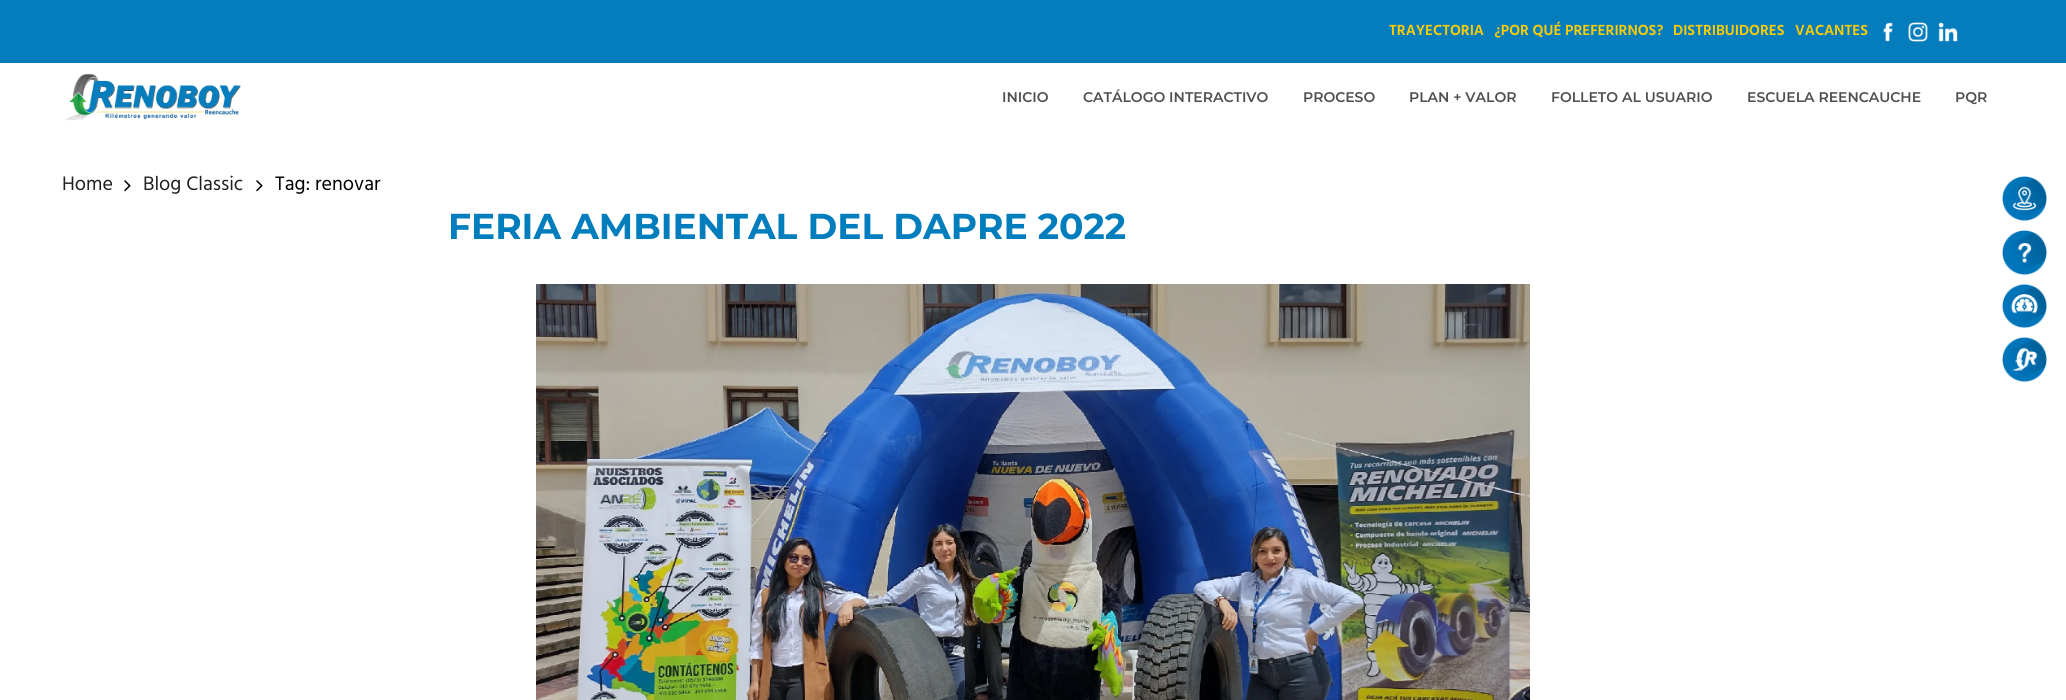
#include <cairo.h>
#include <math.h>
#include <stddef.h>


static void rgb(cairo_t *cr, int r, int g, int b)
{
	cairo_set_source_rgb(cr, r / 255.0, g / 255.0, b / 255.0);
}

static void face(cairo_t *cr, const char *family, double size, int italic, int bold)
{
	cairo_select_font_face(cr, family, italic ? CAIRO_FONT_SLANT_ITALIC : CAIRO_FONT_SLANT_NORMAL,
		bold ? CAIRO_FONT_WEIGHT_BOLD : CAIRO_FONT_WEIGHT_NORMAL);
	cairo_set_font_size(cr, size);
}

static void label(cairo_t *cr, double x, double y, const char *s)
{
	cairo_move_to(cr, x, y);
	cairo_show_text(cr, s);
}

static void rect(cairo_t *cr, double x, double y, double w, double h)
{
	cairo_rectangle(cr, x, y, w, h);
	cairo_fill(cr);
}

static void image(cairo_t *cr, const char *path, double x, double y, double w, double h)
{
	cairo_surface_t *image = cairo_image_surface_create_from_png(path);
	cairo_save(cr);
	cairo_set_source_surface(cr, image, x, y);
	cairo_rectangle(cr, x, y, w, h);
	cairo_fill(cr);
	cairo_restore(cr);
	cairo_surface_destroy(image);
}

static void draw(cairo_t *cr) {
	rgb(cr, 255, 255, 255);
	cairo_paint(cr);
	rgb(cr, 5, 125, 189);
	rect(cr, 0, 0, 2066, 63);
	face(cr, "Hind SemiBold", 15, 0, 0);
	rgb(cr, 255, 206, 0);
	label(cr, 1389, 35, "TRAYECTORIA");
	label(cr, 1494, 35, "¿POR QUÉ PREFERIRNOS?");
	label(cr, 1673, 35, "DISTRIBUIDORES");
	label(cr, 1795, 35, "VACANTES");
	image(cr, "image0.png", 1883, 22, 10, 20);
	image(cr, "image1.png", 1908, 22, 20, 20);
	image(cr, "image2.png", 1938, 22, 20, 20);
	image(cr, "image3.png", 64, 73, 177, 48);
	face(cr, "Montserrat SemiBold", 14, 0, 0);
	rgb(cr, 79, 79, 79);
	label(cr, 1002, 102, "INICIO");
	label(cr, 1083, 102, "CATÁLOGO INTERACTIVO");
	label(cr, 1303, 102, "PROCESO");
	label(cr, 1409, 102, "PLAN + VALOR");
	label(cr, 1551, 102, "FOLLETO AL USUARIO");
	label(cr, 1747, 102, "ESCUELA REENCAUCHE");
	label(cr, 1955, 102, "PQR");
	face(cr, "Hind", 20, 0, 0);
	rgb(cr, 35, 31, 32);
	label(cr, 62, 190, "Home");
	image(cr, "image4.png", 124, 180, 7, 12);
	label(cr, 143, 190, "Blog Classic");
	image(cr, "image4.png", 256, 180, 7, 12);
	rgb(cr, 0, 0, 0);
	label(cr, 275, 190, "Tag: renovar");
	face(cr, "Montserrat", 36, 0, 1);
	rgb(cr, 0, 125, 188);
	label(cr, 448, 239, "FERIA AMBIENTAL DEL DAPRE 2022");
	image(cr, "image5.png", 536, 284, 994, 416);
	image(cr, "image6.png", 2002, 176, 46, 46);
	image(cr, "image7.png", 2002, 230, 46, 46);
	image(cr, "image8.png", 2002, 284, 46, 45);
	image(cr, "image9.png", 2002, 337, 46, 46);
}

int main(void) {
	cairo_surface_t *surface = cairo_image_surface_create(CAIRO_FORMAT_RGB24, 2066, 700);
	cairo_t *cr = cairo_create(surface);
	cairo_font_options_t *options = cairo_font_options_create();
	cairo_font_options_set_hint_metrics(options, CAIRO_HINT_METRICS_OFF);
	cairo_font_options_set_hint_style(options, CAIRO_HINT_STYLE_NONE);
	cairo_set_font_options(cr, options);
	cairo_set_miter_limit(cr, 4);
	draw(cr);
	cairo_surface_write_to_png(surface, "render.png");
	cairo_font_options_destroy(options);
	cairo_destroy(cr);
	cairo_surface_destroy(surface);
	return 0;
}
